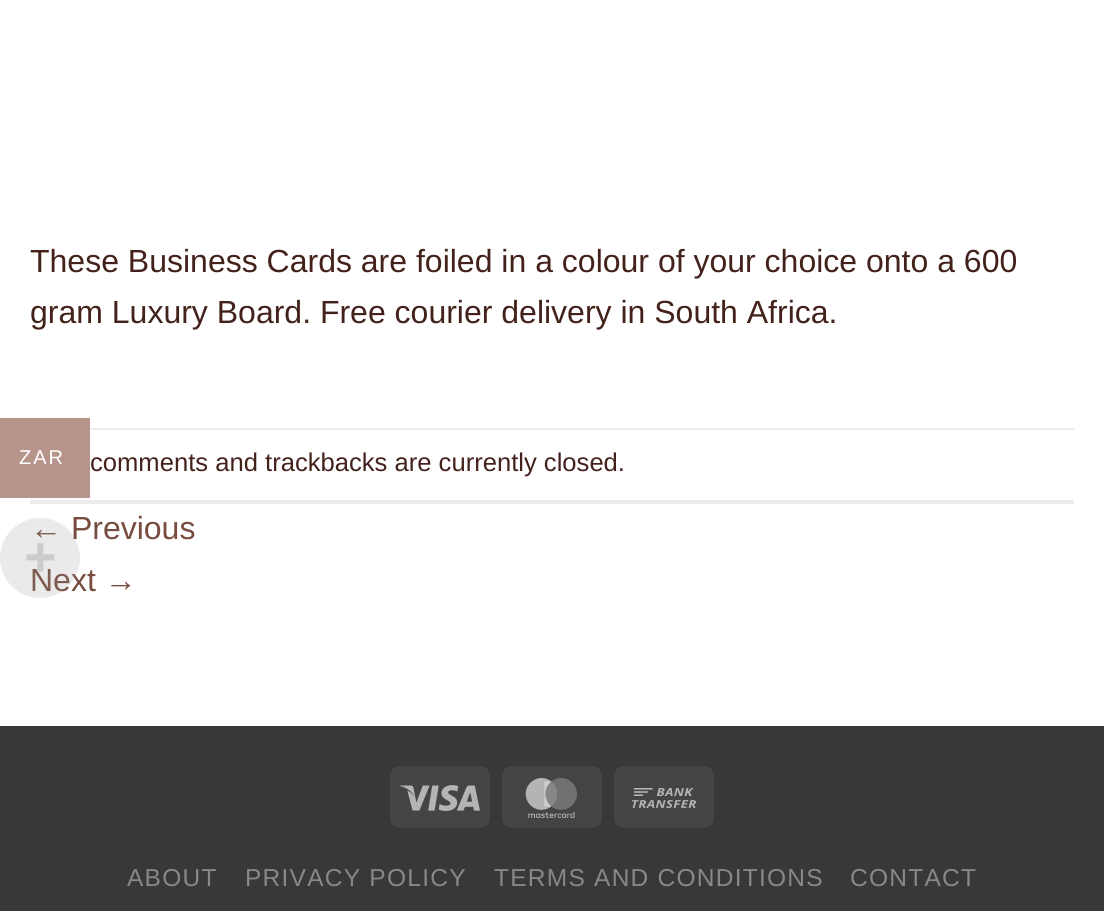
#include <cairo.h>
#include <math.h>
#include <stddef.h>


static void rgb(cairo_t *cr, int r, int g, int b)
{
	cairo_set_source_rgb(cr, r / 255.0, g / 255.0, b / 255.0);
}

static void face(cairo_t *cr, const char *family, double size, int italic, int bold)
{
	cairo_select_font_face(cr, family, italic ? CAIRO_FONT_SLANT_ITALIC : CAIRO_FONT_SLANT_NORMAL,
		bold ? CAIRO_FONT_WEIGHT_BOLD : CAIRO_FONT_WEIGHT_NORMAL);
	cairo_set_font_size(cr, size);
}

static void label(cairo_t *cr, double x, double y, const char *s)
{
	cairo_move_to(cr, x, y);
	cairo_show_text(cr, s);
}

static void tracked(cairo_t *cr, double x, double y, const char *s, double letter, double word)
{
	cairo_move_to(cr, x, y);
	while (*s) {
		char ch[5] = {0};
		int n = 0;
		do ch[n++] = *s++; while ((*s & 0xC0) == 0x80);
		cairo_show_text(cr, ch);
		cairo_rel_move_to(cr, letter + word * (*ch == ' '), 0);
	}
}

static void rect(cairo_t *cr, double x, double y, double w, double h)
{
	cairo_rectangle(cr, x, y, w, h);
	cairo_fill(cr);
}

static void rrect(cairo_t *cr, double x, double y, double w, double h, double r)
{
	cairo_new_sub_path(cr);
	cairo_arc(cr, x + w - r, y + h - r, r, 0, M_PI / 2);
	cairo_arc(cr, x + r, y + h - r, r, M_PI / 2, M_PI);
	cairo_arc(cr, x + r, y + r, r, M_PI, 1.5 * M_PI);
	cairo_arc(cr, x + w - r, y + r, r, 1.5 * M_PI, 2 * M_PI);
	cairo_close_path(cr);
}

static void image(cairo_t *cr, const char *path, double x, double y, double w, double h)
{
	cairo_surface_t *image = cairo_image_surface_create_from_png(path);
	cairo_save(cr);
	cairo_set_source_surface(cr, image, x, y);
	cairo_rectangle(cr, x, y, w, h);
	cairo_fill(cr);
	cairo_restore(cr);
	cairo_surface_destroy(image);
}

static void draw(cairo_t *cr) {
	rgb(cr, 255, 255, 255);
	cairo_paint(cr);
	face(cr, "Liberation Sans", 32, 0, 0);
	rgb(cr, 68, 34, 28);
	label(cr, 30, 272, "These Business Cards are foiled in a colour of your choice onto a 600");
	label(cr, 30, 323, "gram Luxury Board. Free courier delivery in South Africa.");
	rgb(cr, 236, 236, 236);
	rect(cr, 90, 428, 984, 2);
	rect(cr, 30, 500, 1044, 4);
	face(cr, "Liberation Sans", 25.6, 0, 0);
	rgb(cr, 68, 34, 28);
	label(cr, 90, 471, "comments and trackbacks are currently closed.");
	face(cr, "Liberation Sans", 32, 0, 0);
	rgb(cr, 120, 77, 63);
	label(cr, 30, 539, "← Previous");
	label(cr, 30, 591, "Next →");
	rgb(cr, 56, 56, 56);
	rect(cr, 0, 726, 1104, 185);
	rgb(cr, 68, 68, 68);
	rrect(cr, 390, 766, 100, 62, 10);
	cairo_fill(cr);
	image(cr, "image0.png", 400, 785, 80, 26);
	rrect(cr, 502, 766, 100, 62, 10);
	cairo_fill(cr);
	image(cr, "image1.png", 525, 778, 52, 40);
	rrect(cr, 614, 766, 100, 62, 10);
	cairo_fill(cr);
	image(cr, "image2.png", 632, 788, 64, 20);
	face(cr, "Liberation Sans", 24.5, 0, 0);
	rgb(cr, 136, 136, 136);
	tracked(cr, 127, 886, "ABOUT", 1.25, 0);
	tracked(cr, 245, 886, "PRIVACY POLICY", 1.25, 0);
	tracked(cr, 494, 886, "TERMS AND CONDITIONS", 1.25, 0);
	tracked(cr, 850, 886, "CONTACT", 1.25, 0);
	rgb(cr, 183, 148, 138);
	rect(cr, 0, 418, 90, 80);
	face(cr, "Liberation Sans", 20, 0, 0);
	rgb(cr, 255, 255, 255);
	tracked(cr, 19, 464, "ZAR", 2, 0);
	cairo_set_source_rgba(cr, 0.6, 0.6, 0.6, 0.2);
	cairo_new_path(cr);
	cairo_arc(cr, 40, 558, 40, 0, 2 * M_PI);
	cairo_fill(cr);
	face(cr, "Liberation Sans", 56, 0, 1);
	rgb(cr, 204, 204, 204);
	label(cr, 24, 576, "+");
}

int main(void) {
	cairo_surface_t *surface = cairo_image_surface_create(CAIRO_FORMAT_RGB24, 1104, 911);
	cairo_t *cr = cairo_create(surface);
	cairo_font_options_t *options = cairo_font_options_create();
	cairo_font_options_set_hint_metrics(options, CAIRO_HINT_METRICS_OFF);
	cairo_font_options_set_hint_style(options, CAIRO_HINT_STYLE_NONE);
	cairo_set_font_options(cr, options);
	cairo_set_miter_limit(cr, 4);
	draw(cr);
	cairo_surface_write_to_png(surface, "render.png");
	cairo_font_options_destroy(options);
	cairo_destroy(cr);
	cairo_surface_destroy(surface);
	return 0;
}
